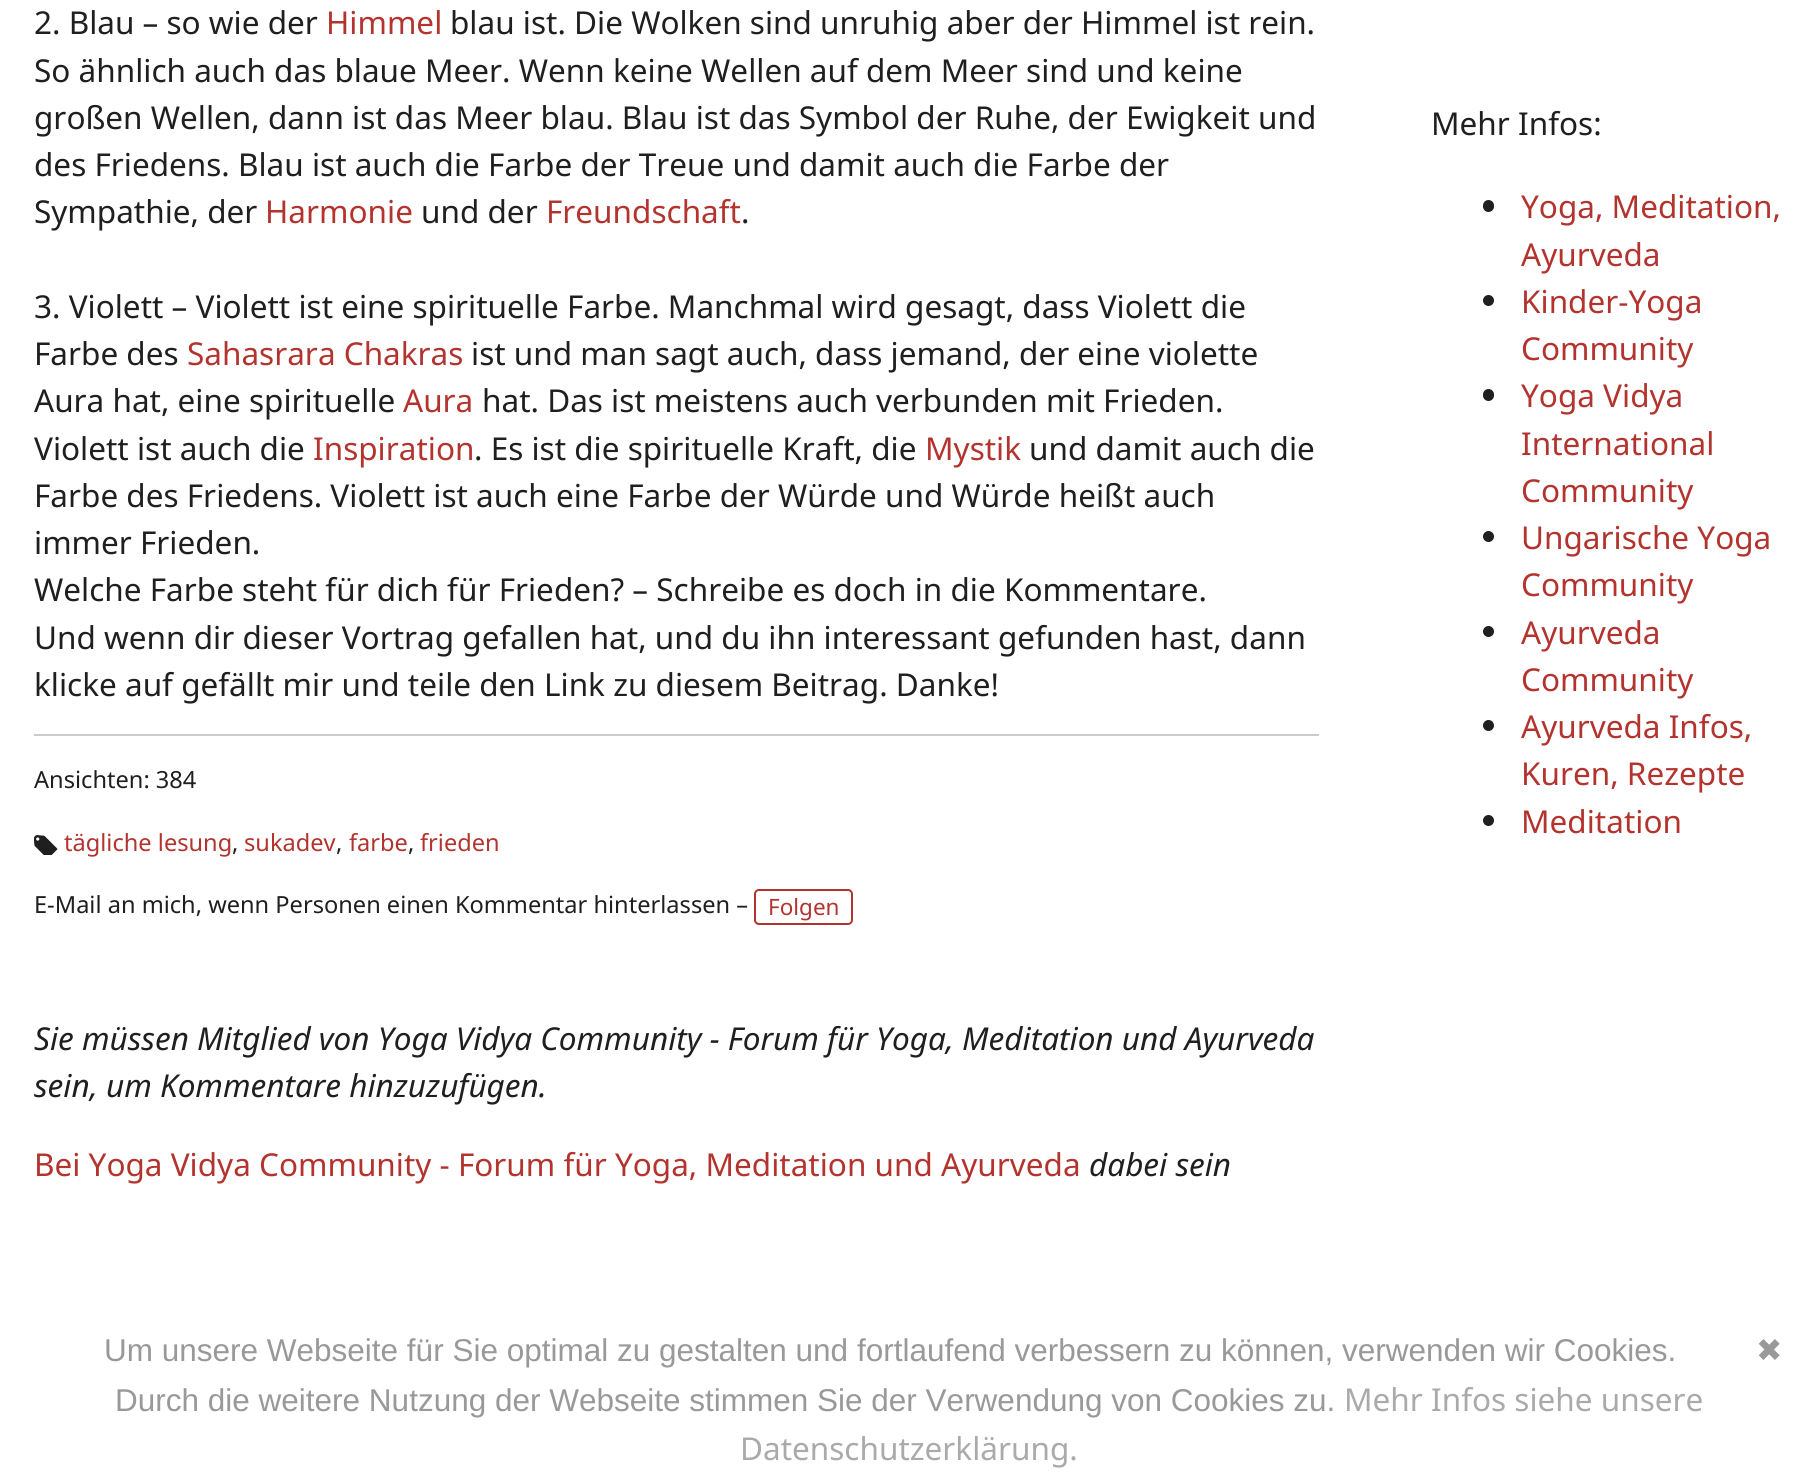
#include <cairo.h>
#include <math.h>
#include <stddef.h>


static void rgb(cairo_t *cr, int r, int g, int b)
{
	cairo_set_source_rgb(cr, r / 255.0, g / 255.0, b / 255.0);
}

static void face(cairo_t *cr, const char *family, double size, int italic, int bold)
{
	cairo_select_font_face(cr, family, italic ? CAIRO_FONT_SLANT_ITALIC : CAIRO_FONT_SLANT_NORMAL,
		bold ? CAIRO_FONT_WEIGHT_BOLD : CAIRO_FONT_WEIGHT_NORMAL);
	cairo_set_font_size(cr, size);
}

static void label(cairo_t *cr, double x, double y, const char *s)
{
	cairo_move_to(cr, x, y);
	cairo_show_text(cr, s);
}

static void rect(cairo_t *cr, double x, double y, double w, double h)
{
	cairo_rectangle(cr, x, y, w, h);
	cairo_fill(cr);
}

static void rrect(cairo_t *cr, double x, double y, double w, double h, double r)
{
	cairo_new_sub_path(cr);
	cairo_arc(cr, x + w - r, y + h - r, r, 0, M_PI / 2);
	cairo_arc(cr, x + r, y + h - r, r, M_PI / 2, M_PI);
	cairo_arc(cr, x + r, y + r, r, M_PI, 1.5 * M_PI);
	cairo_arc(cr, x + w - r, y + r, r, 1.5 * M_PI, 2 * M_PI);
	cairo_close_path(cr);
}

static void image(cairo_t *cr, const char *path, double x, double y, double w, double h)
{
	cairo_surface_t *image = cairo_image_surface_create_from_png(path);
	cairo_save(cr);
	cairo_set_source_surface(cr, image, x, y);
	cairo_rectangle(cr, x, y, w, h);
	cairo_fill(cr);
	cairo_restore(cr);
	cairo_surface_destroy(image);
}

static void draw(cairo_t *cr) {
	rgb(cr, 255, 255, 255);
	cairo_paint(cr);
	face(cr, "Noto Sans", 31.5, 0, 0);
	rgb(cr, 31, 31, 31);
	label(cr, 34, 34, "2. Blau – so wie der");
	rgb(cr, 179, 52, 46);
	label(cr, 326, 34, "Himmel");
	rgb(cr, 31, 31, 31);
	label(cr, 450, 34, "blau ist. Die Wolken sind unruhig aber der Himmel ist rein.");
	label(cr, 34, 82, "So ähnlich auch das blaue Meer. Wenn keine Wellen auf dem Meer sind und keine");
	label(cr, 34, 129, "großen Wellen, dann ist das Meer blau. Blau ist das Symbol der Ruhe, der Ewigkeit und");
	label(cr, 34, 176, "des Friedens. Blau ist auch die Farbe der Treue und damit auch die Farbe der");
	label(cr, 34, 223, "Sympathie, der");
	rgb(cr, 179, 52, 46);
	label(cr, 265, 223, "Harmonie");
	rgb(cr, 31, 31, 31);
	label(cr, 421, 223, "und der");
	rgb(cr, 179, 52, 46);
	label(cr, 546, 223, "Freundschaft");
	rgb(cr, 31, 31, 31);
	label(cr, 741, 223, ".");
	label(cr, 34, 318, "3. Violett – Violett ist eine spirituelle Farbe. Manchmal wird gesagt, dass Violett die");
	label(cr, 34, 365, "Farbe des");
	rgb(cr, 179, 52, 46);
	label(cr, 187, 365, "Sahasrara Chakras");
	rgb(cr, 31, 31, 31);
	label(cr, 471, 365, "ist und man sagt auch, dass jemand, der eine violette");
	label(cr, 34, 412, "Aura hat, eine spirituelle");
	rgb(cr, 179, 52, 46);
	label(cr, 403, 412, "Aura");
	rgb(cr, 31, 31, 31);
	label(cr, 482, 412, "hat. Das ist meistens auch verbunden mit Frieden.");
	label(cr, 34, 460, "Violett ist auch die");
	rgb(cr, 179, 52, 46);
	label(cr, 313, 460, "Inspiration");
	rgb(cr, 31, 31, 31);
	label(cr, 474, 460, ". Es ist die spirituelle Kraft, die");
	rgb(cr, 179, 52, 46);
	label(cr, 925, 460, "Mystik");
	rgb(cr, 31, 31, 31);
	label(cr, 1029, 460, "und damit auch die");
	label(cr, 34, 507, "Farbe des Friedens. Violett ist auch eine Farbe der Würde und Würde heißt auch");
	label(cr, 34, 554, "immer Frieden.");
	label(cr, 34, 601, "Welche Farbe steht für dich für Frieden? – Schreibe es doch in die Kommentare.");
	label(cr, 34, 649, "Und wenn dir dieser Vortrag gefallen hat, und du ihn interessant gefunden hast, dann");
	label(cr, 34, 696, "klicke auf gefällt mir und teile den Link zu diesem Beitrag. Danke!");
	rgb(cr, 204, 204, 204);
	rect(cr, 34, 734, 1285, 2);
	face(cr, "Noto Sans", 23.6, 0, 0);
	rgb(cr, 31, 31, 31);
	label(cr, 34, 788, "Ansichten: 384");
	image(cr, "image0.png", 34, 835, 24, 20);
	rgb(cr, 179, 52, 46);
	label(cr, 64, 851, "tägliche lesung");
	rgb(cr, 31, 31, 31);
	label(cr, 232, 851, ",");
	rgb(cr, 179, 52, 46);
	label(cr, 244, 851, "sukadev");
	rgb(cr, 31, 31, 31);
	label(cr, 336, 851, ",");
	rgb(cr, 179, 52, 46);
	label(cr, 349, 851, "farbe");
	rgb(cr, 31, 31, 31);
	label(cr, 408, 851, ",");
	rgb(cr, 179, 52, 46);
	label(cr, 420, 851, "frieden");
	rgb(cr, 31, 31, 31);
	label(cr, 34, 913, "E-Mail an mich, wenn Personen einen Kommentar hinterlassen –");
	rrect(cr, 755, 890, 97, 34, 4);
	rgb(cr, 179, 52, 46);
	cairo_stroke(cr);
	face(cr, "Noto Sans", 22.5, 0, 0);
	label(cr, 768, 915, "Folgen");
	face(cr, "Noto Sans", 31.5, 1, 0);
	rgb(cr, 31, 31, 31);
	label(cr, 34, 1050, "Sie müssen Mitglied von Yoga Vidya Community - Forum für Yoga, Meditation und Ayurveda");
	label(cr, 34, 1097, "sein, um Kommentare hinzuzufügen.");
	face(cr, "Noto Sans", 31.5, 0, 0);
	rgb(cr, 179, 52, 46);
	label(cr, 34, 1176, "Bei Yoga Vidya Community - Forum für Yoga, Meditation und Ayurveda");
	face(cr, "Noto Sans", 31.5, 1, 0);
	rgb(cr, 31, 31, 31);
	label(cr, 1089, 1176, "dabei sein");
	face(cr, "Noto Sans", 31.5, 0, 0);
	label(cr, 1431, 135, "Mehr Infos:");
	rrect(cr, 1483, 200, 11, 12, 5.5);
	cairo_fill(cr);
	rgb(cr, 179, 52, 46);
	label(cr, 1521, 218, "Yoga, Meditation,");
	label(cr, 1521, 266, "Ayurveda");
	rgb(cr, 31, 31, 31);
	cairo_new_path(cr);
	cairo_arc(cr, 1488.5, 300.5, 5.5, 0, 2 * M_PI);
	cairo_fill(cr);
	rgb(cr, 179, 52, 46);
	label(cr, 1521, 313, "Kinder-Yoga");
	label(cr, 1521, 360, "Community");
	rgb(cr, 31, 31, 31);
	rrect(cr, 1483, 389, 11, 12, 5.5);
	cairo_fill(cr);
	rgb(cr, 179, 52, 46);
	label(cr, 1521, 407, "Yoga Vidya");
	label(cr, 1521, 455, "International");
	label(cr, 1521, 502, "Community");
	rgb(cr, 31, 31, 31);
	cairo_new_path(cr);
	cairo_arc(cr, 1488.5, 536.5, 5.5, 0, 2 * M_PI);
	cairo_fill(cr);
	rgb(cr, 179, 52, 46);
	label(cr, 1521, 549, "Ungarische Yoga");
	label(cr, 1521, 596, "Community");
	rgb(cr, 31, 31, 31);
	cairo_new_path(cr);
	cairo_arc(cr, 1488.5, 631.5, 5.5, 0, 2 * M_PI);
	cairo_fill(cr);
	rgb(cr, 179, 52, 46);
	label(cr, 1521, 644, "Ayurveda");
	label(cr, 1521, 691, "Community");
	rgb(cr, 31, 31, 31);
	cairo_new_path(cr);
	cairo_arc(cr, 1488.5, 725.5, 5.5, 0, 2 * M_PI);
	cairo_fill(cr);
	rgb(cr, 179, 52, 46);
	label(cr, 1521, 738, "Ayurveda Infos,");
	label(cr, 1521, 785, "Kuren, Rezepte");
	rgb(cr, 31, 31, 31);
	cairo_new_path(cr);
	cairo_arc(cr, 1488.5, 820.5, 5.5, 0, 2 * M_PI);
	cairo_fill(cr);
	rgb(cr, 179, 52, 46);
	label(cr, 1521, 833, "Meditation");
	face(cr, "Liberation Sans", 31.5, 0, 0);
	rgb(cr, 153, 153, 153);
	label(cr, 104, 1361, "Um unsere Webseite für Sie optimal zu gestalten und fortlaufend verbessern zu können, verwenden wir Cookies.");
	face(cr, "DejaVu Sans", 31.5, 0, 0);
	label(cr, 1756, 1361, "✖");
	face(cr, "Liberation Sans", 31.5, 0, 0);
	label(cr, 115, 1411, "Durch die weitere Nutzung der Webseite stimmen Sie der Verwendung von Cookies zu.");
	face(cr, "Noto Sans", 31.5, 0, 0);
	rgb(cr, 170, 170, 170);
	label(cr, 1344, 1411, "Mehr Infos siehe unsere");
	label(cr, 740, 1460, "Datenschutzerklärung.");
}

int main(void) {
	cairo_surface_t *surface = cairo_image_surface_create(CAIRO_FORMAT_RGB24, 1817, 1484);
	cairo_t *cr = cairo_create(surface);
	cairo_font_options_t *options = cairo_font_options_create();
	cairo_font_options_set_hint_metrics(options, CAIRO_HINT_METRICS_OFF);
	cairo_font_options_set_hint_style(options, CAIRO_HINT_STYLE_NONE);
	cairo_set_font_options(cr, options);
	cairo_set_miter_limit(cr, 4);
	draw(cr);
	cairo_surface_write_to_png(surface, "render.png");
	cairo_font_options_destroy(options);
	cairo_destroy(cr);
	cairo_surface_destroy(surface);
	return 0;
}
